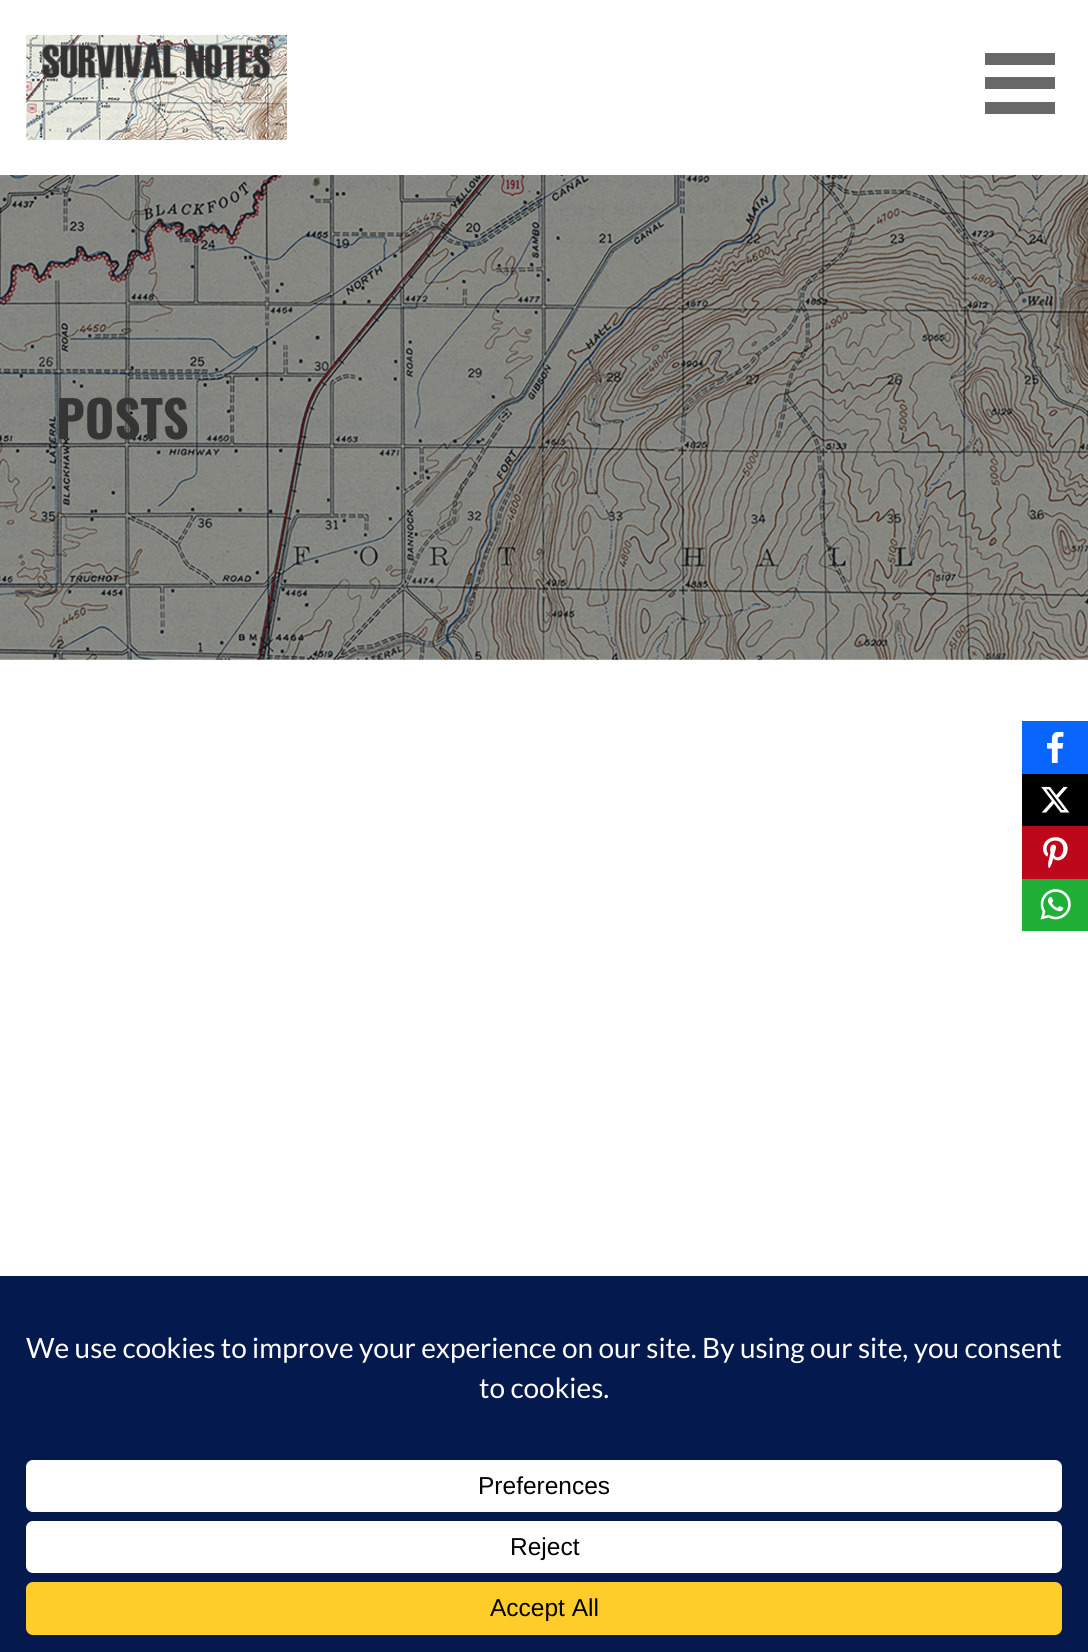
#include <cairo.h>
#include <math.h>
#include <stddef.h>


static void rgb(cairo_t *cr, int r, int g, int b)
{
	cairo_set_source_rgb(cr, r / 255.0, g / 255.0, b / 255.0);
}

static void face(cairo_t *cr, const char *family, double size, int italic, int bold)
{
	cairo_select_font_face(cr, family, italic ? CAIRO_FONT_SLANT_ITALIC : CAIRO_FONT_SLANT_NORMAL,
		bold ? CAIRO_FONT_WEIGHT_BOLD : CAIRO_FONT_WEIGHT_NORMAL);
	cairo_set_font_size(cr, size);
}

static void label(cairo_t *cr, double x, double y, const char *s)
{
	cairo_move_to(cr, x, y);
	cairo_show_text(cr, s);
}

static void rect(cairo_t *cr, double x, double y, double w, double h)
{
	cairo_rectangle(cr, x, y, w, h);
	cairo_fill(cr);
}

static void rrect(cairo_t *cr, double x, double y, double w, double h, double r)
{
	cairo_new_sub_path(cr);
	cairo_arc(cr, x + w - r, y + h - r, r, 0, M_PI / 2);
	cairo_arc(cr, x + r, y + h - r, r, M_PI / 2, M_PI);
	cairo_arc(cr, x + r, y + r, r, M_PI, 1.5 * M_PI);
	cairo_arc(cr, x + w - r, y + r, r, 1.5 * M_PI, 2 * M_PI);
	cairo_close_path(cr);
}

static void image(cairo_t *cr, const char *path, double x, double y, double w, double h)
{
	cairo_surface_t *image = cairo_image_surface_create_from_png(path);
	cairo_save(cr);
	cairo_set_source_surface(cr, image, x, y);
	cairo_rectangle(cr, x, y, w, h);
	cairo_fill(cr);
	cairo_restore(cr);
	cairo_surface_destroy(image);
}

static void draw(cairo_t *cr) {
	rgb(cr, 255, 255, 255);
	cairo_paint(cr);
	image(cr, "image0.png", 26, 35, 261, 105);
	rgb(cr, 104, 104, 104);
	rect(cr, 985, 53, 70, 12);
	rect(cr, 985, 77, 70, 12);
	rect(cr, 985, 102, 70, 12);
	image(cr, "image1.png", 0, 175, 1088, 485);
	face(cr, "Oswald", 50.5, 0, 1);
	rgb(cr, 53, 53, 53);
	label(cr, 56, 439, "POSTS");
	rgb(cr, 8, 102, 255);
	rect(cr, 1022, 721, 66, 53);
	image(cr, "image2.png", 1047, 732, 17, 31);
	rgb(cr, 0, 0, 0);
	rect(cr, 1022, 774, 66, 52);
	image(cr, "image3.png", 1041, 786, 29, 27);
	rgb(cr, 189, 8, 28);
	rect(cr, 1022, 826, 66, 53);
	image(cr, "image4.png", 1043, 837, 25, 31);
	rgb(cr, 32, 176, 56);
	rect(cr, 1022, 879, 66, 52);
	image(cr, "image5.png", 1040, 889, 31, 31);
	rgb(cr, 4, 25, 78);
	rect(cr, 0, 1276, 1088, 376);
	face(cr, "Lato", 28, 0, 0);
	rgb(cr, 255, 255, 255);
	label(cr, 26, 1358, "We use cookies to improve your experience on our site. By using our site, you consent");
	label(cr, 479, 1398, "to cookies.");
	rrect(cr, 26, 1460, 1036, 52, 7);
	cairo_fill(cr);
	face(cr, "Liberation Sans", 24.5, 0, 0);
	rgb(cr, 0, 0, 0);
	label(cr, 478, 1494, "Preferences");
	rgb(cr, 255, 255, 255);
	rrect(cr, 26, 1521, 1036, 52, 7);
	cairo_fill(cr);
	rgb(cr, 0, 0, 0);
	label(cr, 510, 1555, "Reject");
	rgb(cr, 255, 205, 42);
	rrect(cr, 26, 1582, 1036, 53, 7);
	cairo_fill(cr);
	rgb(cr, 0, 0, 0);
	label(cr, 490, 1616, "Accept All");
}

int main(void) {
	cairo_surface_t *surface = cairo_image_surface_create(CAIRO_FORMAT_RGB24, 1088, 1652);
	cairo_t *cr = cairo_create(surface);
	cairo_font_options_t *options = cairo_font_options_create();
	cairo_font_options_set_hint_metrics(options, CAIRO_HINT_METRICS_OFF);
	cairo_font_options_set_hint_style(options, CAIRO_HINT_STYLE_NONE);
	cairo_set_font_options(cr, options);
	cairo_set_miter_limit(cr, 4);
	draw(cr);
	cairo_surface_write_to_png(surface, "render.png");
	cairo_font_options_destroy(options);
	cairo_destroy(cr);
	cairo_surface_destroy(surface);
	return 0;
}
